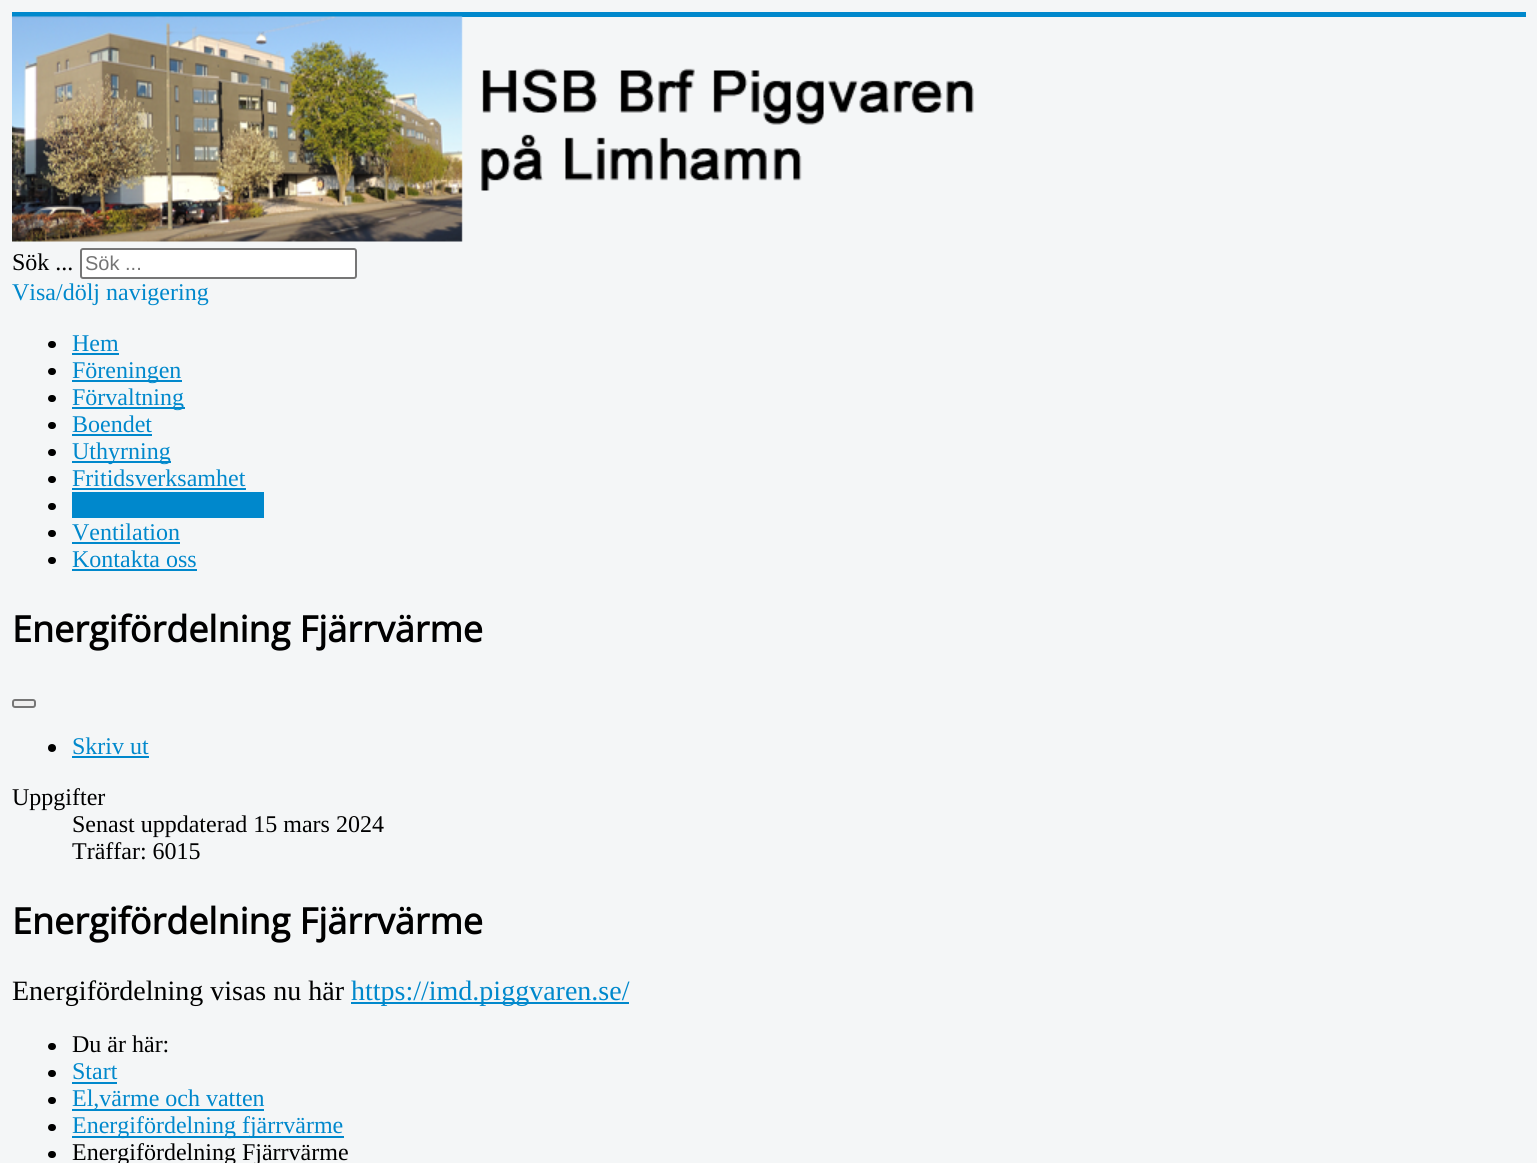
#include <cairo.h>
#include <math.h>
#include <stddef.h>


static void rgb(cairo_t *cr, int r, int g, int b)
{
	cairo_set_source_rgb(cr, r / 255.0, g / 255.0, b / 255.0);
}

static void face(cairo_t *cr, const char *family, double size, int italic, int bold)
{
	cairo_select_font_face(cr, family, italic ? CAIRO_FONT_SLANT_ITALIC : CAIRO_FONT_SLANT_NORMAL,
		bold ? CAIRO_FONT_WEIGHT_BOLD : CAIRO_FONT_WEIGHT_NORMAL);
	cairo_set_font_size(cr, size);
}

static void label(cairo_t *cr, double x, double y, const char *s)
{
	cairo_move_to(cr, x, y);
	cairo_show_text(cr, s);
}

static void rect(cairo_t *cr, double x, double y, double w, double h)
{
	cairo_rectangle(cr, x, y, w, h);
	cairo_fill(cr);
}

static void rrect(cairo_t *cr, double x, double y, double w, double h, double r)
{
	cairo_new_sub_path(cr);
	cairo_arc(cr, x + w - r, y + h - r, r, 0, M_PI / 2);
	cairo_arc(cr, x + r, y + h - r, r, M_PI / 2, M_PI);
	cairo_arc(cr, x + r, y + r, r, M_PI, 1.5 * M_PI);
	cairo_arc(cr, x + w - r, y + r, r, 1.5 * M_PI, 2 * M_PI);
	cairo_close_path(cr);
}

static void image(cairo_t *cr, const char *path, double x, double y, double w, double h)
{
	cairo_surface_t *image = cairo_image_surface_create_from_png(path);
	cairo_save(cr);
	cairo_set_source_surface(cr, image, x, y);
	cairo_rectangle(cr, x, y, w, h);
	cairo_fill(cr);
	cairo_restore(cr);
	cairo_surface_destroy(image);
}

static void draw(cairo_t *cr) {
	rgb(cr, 244, 246, 247);
	cairo_paint(cr);
	rgb(cr, 0, 136, 204);
	rect(cr, 12, 12, 1514, 5);
	image(cr, "image0.png", 12, 16, 962, 226);
	face(cr, "Liberation Serif", 24, 0, 0);
	rgb(cr, 0, 0, 0);
	label(cr, 12, 270, "Sök ...");
	rgb(cr, 255, 255, 255);
	rrect(cr, 81, 249, 275, 29, 2);
	cairo_fill_preserve(cr);
	rgb(cr, 118, 118, 118);
	cairo_stroke(cr);
	face(cr, "Liberation Sans", 20, 0, 0);
	rgb(cr, 117, 117, 117);
	label(cr, 85, 270, "Sök ...");
	face(cr, "Liberation Serif", 24, 0, 0);
	rgb(cr, 0, 136, 204);
	label(cr, 12, 300, "Visa/dölj navigering");
	rgb(cr, 0, 0, 0);
	rrect(cr, 48, 341, 8, 7, 3.5);
	cairo_fill(cr);
	rgb(cr, 0, 136, 204);
	label(cr, 72, 351, "Hem");
	rect(cr, 72, 353, 47, 2);
	rgb(cr, 0, 0, 0);
	rrect(cr, 48, 368, 8, 7, 3.5);
	cairo_fill(cr);
	rgb(cr, 0, 136, 204);
	rect(cr, 72, 380, 110, 2);
	label(cr, 72, 378, "Föreningen");
	rgb(cr, 0, 0, 0);
	rrect(cr, 48, 395, 8, 7, 3.5);
	cairo_fill(cr);
	rgb(cr, 0, 136, 204);
	rect(cr, 72, 407, 113, 2);
	label(cr, 72, 405, "Förvaltning");
	rgb(cr, 0, 0, 0);
	rrect(cr, 48, 422, 8, 7, 3.5);
	cairo_fill(cr);
	rgb(cr, 0, 136, 204);
	label(cr, 72, 432, "Boendet");
	rect(cr, 72, 434, 80, 2);
	rgb(cr, 0, 0, 0);
	rrect(cr, 48, 449, 8, 7, 3.5);
	cairo_fill(cr);
	rgb(cr, 0, 136, 204);
	rect(cr, 72, 461, 99, 2);
	label(cr, 72, 459, "Uthyrning");
	rgb(cr, 0, 0, 0);
	rrect(cr, 48, 476, 8, 7, 3.5);
	cairo_fill(cr);
	rgb(cr, 0, 136, 204);
	label(cr, 72, 486, "Fritidsverksamhet");
	rect(cr, 72, 488, 174, 2);
	rgb(cr, 0, 0, 0);
	rrect(cr, 48, 503, 8, 7, 3.5);
	cairo_fill(cr);
	rgb(cr, 0, 136, 204);
	rect(cr, 72, 492, 192, 26);
	rgb(cr, 0, 0, 0);
	rrect(cr, 48, 530, 8, 7, 3.5);
	cairo_fill(cr);
	rgb(cr, 0, 136, 204);
	label(cr, 72, 540, "Ventilation");
	rect(cr, 72, 542, 108, 2);
	rgb(cr, 0, 0, 0);
	rrect(cr, 48, 557, 8, 7, 3.5);
	cairo_fill(cr);
	rgb(cr, 0, 136, 204);
	label(cr, 72, 567, "Kontakta oss");
	rect(cr, 72, 569, 125, 2);
	face(cr, "Open Sans", 36, 0, 1);
	rgb(cr, 0, 0, 0);
	label(cr, 12, 642, "Energifördelning Fjärrvärme");
	rgb(cr, 239, 239, 239);
	rrect(cr, 13, 700, 22, 7, 2);
	cairo_fill_preserve(cr);
	rgb(cr, 118, 118, 118);
	cairo_stroke(cr);
	rgb(cr, 0, 0, 0);
	cairo_arc(cr, 52, 748, 4, 0, 2 * M_PI);
	cairo_fill(cr);
	face(cr, "Liberation Serif", 24, 0, 0);
	rgb(cr, 0, 136, 204);
	label(cr, 72, 754, "Skriv ut");
	rect(cr, 72, 756, 77, 2);
	rgb(cr, 0, 0, 0);
	label(cr, 12, 805, "Uppgifter");
	label(cr, 72, 832, "Senast uppdaterad 15 mars 2024");
	label(cr, 72, 859, "Träffar: 6015");
	face(cr, "Open Sans", 36, 0, 1);
	label(cr, 12, 934, "Energifördelning Fjärrvärme");
	face(cr, "Liberation Serif", 28, 0, 0);
	label(cr, 12, 1000, "Energifördelning visas nu här");
	rgb(cr, 0, 136, 204);
	rect(cr, 351, 1002, 278, 2);
	label(cr, 351, 1000, "https://imd.piggvaren.se/");
	rgb(cr, 0, 0, 0);
	rrect(cr, 48, 1043, 8, 7, 3.5);
	cairo_fill(cr);
	face(cr, "Liberation Serif", 24, 0, 0);
	label(cr, 72, 1052, "Du är här:");
	rrect(cr, 48, 1070, 8, 7, 3.5);
	cairo_fill(cr);
	rgb(cr, 0, 136, 204);
	label(cr, 72, 1079, "Start");
	rect(cr, 72, 1082, 45, 2);
	rgb(cr, 0, 0, 0);
	rrect(cr, 48, 1097, 8, 7, 3.5);
	cairo_fill(cr);
	rgb(cr, 0, 136, 204);
	rect(cr, 72, 1109, 192, 2);
	label(cr, 72, 1106, "El,värme och vatten");
	rgb(cr, 0, 0, 0);
	rrect(cr, 48, 1124, 8, 7, 3.5);
	cairo_fill(cr);
	rgb(cr, 0, 136, 204);
	rect(cr, 72, 1136, 272, 2);
	label(cr, 72, 1133, "Energifördelning fjärrvärme");
	rgb(cr, 0, 0, 0);
	rrect(cr, 48, 1151, 8, 7, 3.5);
	cairo_fill(cr);
	label(cr, 72, 1160, "Energifördelning Fjärrvärme");
}

int main(void) {
	cairo_surface_t *surface = cairo_image_surface_create(CAIRO_FORMAT_RGB24, 1537, 1163);
	cairo_t *cr = cairo_create(surface);
	cairo_font_options_t *options = cairo_font_options_create();
	cairo_font_options_set_hint_metrics(options, CAIRO_HINT_METRICS_OFF);
	cairo_font_options_set_hint_style(options, CAIRO_HINT_STYLE_NONE);
	cairo_set_font_options(cr, options);
	cairo_set_miter_limit(cr, 4);
	draw(cr);
	cairo_surface_write_to_png(surface, "render.png");
	cairo_font_options_destroy(options);
	cairo_destroy(cr);
	cairo_surface_destroy(surface);
	return 0;
}
